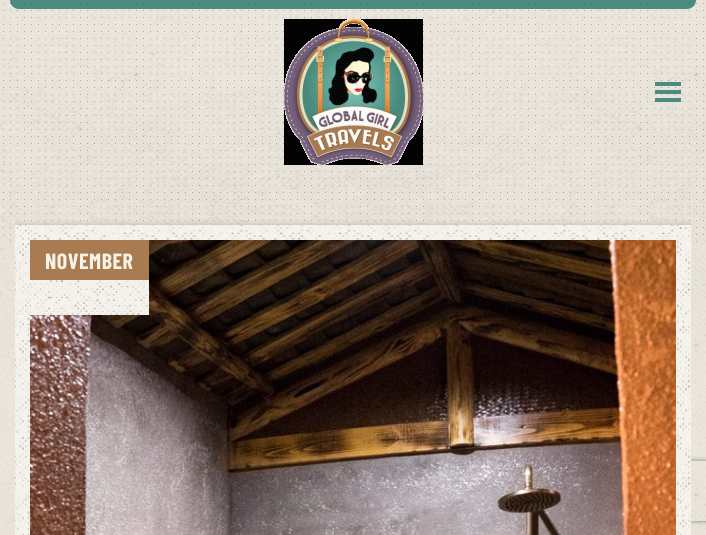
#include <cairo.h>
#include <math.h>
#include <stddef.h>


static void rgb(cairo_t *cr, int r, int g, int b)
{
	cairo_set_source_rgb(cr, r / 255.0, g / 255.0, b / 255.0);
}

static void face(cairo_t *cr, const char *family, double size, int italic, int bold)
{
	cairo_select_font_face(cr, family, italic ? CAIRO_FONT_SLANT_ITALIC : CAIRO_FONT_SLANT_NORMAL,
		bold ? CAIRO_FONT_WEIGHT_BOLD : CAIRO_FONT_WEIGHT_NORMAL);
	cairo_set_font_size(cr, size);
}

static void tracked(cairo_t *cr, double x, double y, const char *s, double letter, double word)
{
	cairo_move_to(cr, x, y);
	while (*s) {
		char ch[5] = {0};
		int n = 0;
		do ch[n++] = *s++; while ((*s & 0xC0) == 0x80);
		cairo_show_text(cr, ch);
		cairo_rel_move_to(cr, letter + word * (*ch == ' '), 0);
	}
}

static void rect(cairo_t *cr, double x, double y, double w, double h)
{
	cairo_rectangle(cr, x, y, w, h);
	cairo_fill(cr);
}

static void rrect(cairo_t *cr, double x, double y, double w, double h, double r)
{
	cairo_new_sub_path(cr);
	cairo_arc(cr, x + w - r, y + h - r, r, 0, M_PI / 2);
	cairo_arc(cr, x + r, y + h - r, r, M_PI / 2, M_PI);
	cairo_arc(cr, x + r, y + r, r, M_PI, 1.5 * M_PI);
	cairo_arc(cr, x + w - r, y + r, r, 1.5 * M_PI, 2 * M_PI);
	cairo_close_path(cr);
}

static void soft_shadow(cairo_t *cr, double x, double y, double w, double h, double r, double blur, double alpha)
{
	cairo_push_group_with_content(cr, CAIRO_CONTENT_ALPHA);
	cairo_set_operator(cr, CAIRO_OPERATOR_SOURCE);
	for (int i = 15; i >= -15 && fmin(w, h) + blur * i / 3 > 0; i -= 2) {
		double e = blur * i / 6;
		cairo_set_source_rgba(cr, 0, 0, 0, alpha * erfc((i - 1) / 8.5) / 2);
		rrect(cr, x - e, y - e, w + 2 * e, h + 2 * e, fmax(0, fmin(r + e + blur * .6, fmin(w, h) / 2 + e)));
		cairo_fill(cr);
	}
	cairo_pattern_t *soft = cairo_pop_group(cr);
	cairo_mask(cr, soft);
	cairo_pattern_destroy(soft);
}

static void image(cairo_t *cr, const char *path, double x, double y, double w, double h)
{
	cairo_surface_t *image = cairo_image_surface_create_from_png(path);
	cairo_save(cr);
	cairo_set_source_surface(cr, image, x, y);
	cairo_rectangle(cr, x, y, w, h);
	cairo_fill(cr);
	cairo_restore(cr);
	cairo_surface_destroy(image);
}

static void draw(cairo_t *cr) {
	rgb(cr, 247, 242, 232);
	cairo_paint(cr);
	image(cr, "image0.png", 0, 0, 706, 535);
	rgb(cr, 75, 139, 129);
	cairo_new_path(cr);
	cairo_move_to(cr, 10, 0);
	cairo_line_to(cr, 696, 0);
	cairo_curve_to(cr, 696, 5, 692, 9, 687, 9);
	cairo_line_to(cr, 19, 9);
	cairo_curve_to(cr, 14, 9, 10, 5, 10, 0);
	cairo_close_path(cr);
	cairo_fill(cr);
	image(cr, "image1.png", 3, 3, 701, 239);
	image(cr, "image2.png", 284, 19, 139, 146);
	rect(cr, 655, 82, 26, 4);
	rect(cr, 655, 90, 26, 4);
	rect(cr, 655, 98, 26, 4);
	cairo_save(cr);
	cairo_rectangle(cr, 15, 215, 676, 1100);
	cairo_clip(cr);
	rgb(cr, 0, 0, 0);
	soft_shadow(cr, 14, 224, 678, 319, 0, 2.5, 0.15);
	cairo_restore(cr);
	cairo_save(cr);
	cairo_set_fill_rule(cr, CAIRO_FILL_RULE_EVEN_ODD);
	cairo_new_path(cr);
	cairo_move_to(cr, 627, 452);
	cairo_line_to(cr, 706, 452);
	cairo_line_to(cr, 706, 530);
	cairo_line_to(cr, 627, 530);
	cairo_close_path(cr);
	cairo_move_to(cr, 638, 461);
	cairo_line_to(cr, 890, 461);
	cairo_curve_to(cr, 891, 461, 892, 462, 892, 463);
	cairo_line_to(cr, 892, 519);
	cairo_curve_to(cr, 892, 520, 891, 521, 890, 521);
	cairo_line_to(cr, 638, 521);
	cairo_curve_to(cr, 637, 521, 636, 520, 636, 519);
	cairo_line_to(cr, 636, 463);
	cairo_curve_to(cr, 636, 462, 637, 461, 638, 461);
	cairo_close_path(cr);
	cairo_clip(cr);
	rgb(cr, 128, 128, 128);
	soft_shadow(cr, 636, 461, 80, 60, 2, 2.5, 1);
	cairo_restore(cr);
	image(cr, "image3.png", 15, 225, 676, 310);
	image(cr, "image4.png", 30, 240, 646, 295);
	image(cr, "image5.png", 30, 280, 119, 35);
	rgb(cr, 169, 123, 80);
	rect(cr, 30, 240, 119, 40);
	face(cr, "Barlow Condensed", 22, 0, 1);
	rgb(cr, 247, 242, 232);
	tracked(cr, 45, 269, "NOVEMBER", 0.5, 0);
}

int main(void) {
	cairo_surface_t *surface = cairo_image_surface_create(CAIRO_FORMAT_RGB24, 706, 535);
	cairo_t *cr = cairo_create(surface);
	cairo_font_options_t *options = cairo_font_options_create();
	cairo_font_options_set_hint_metrics(options, CAIRO_HINT_METRICS_OFF);
	cairo_font_options_set_hint_style(options, CAIRO_HINT_STYLE_NONE);
	cairo_set_font_options(cr, options);
	cairo_set_miter_limit(cr, 4);
	draw(cr);
	cairo_surface_write_to_png(surface, "render.png");
	cairo_font_options_destroy(options);
	cairo_destroy(cr);
	cairo_surface_destroy(surface);
	return 0;
}
